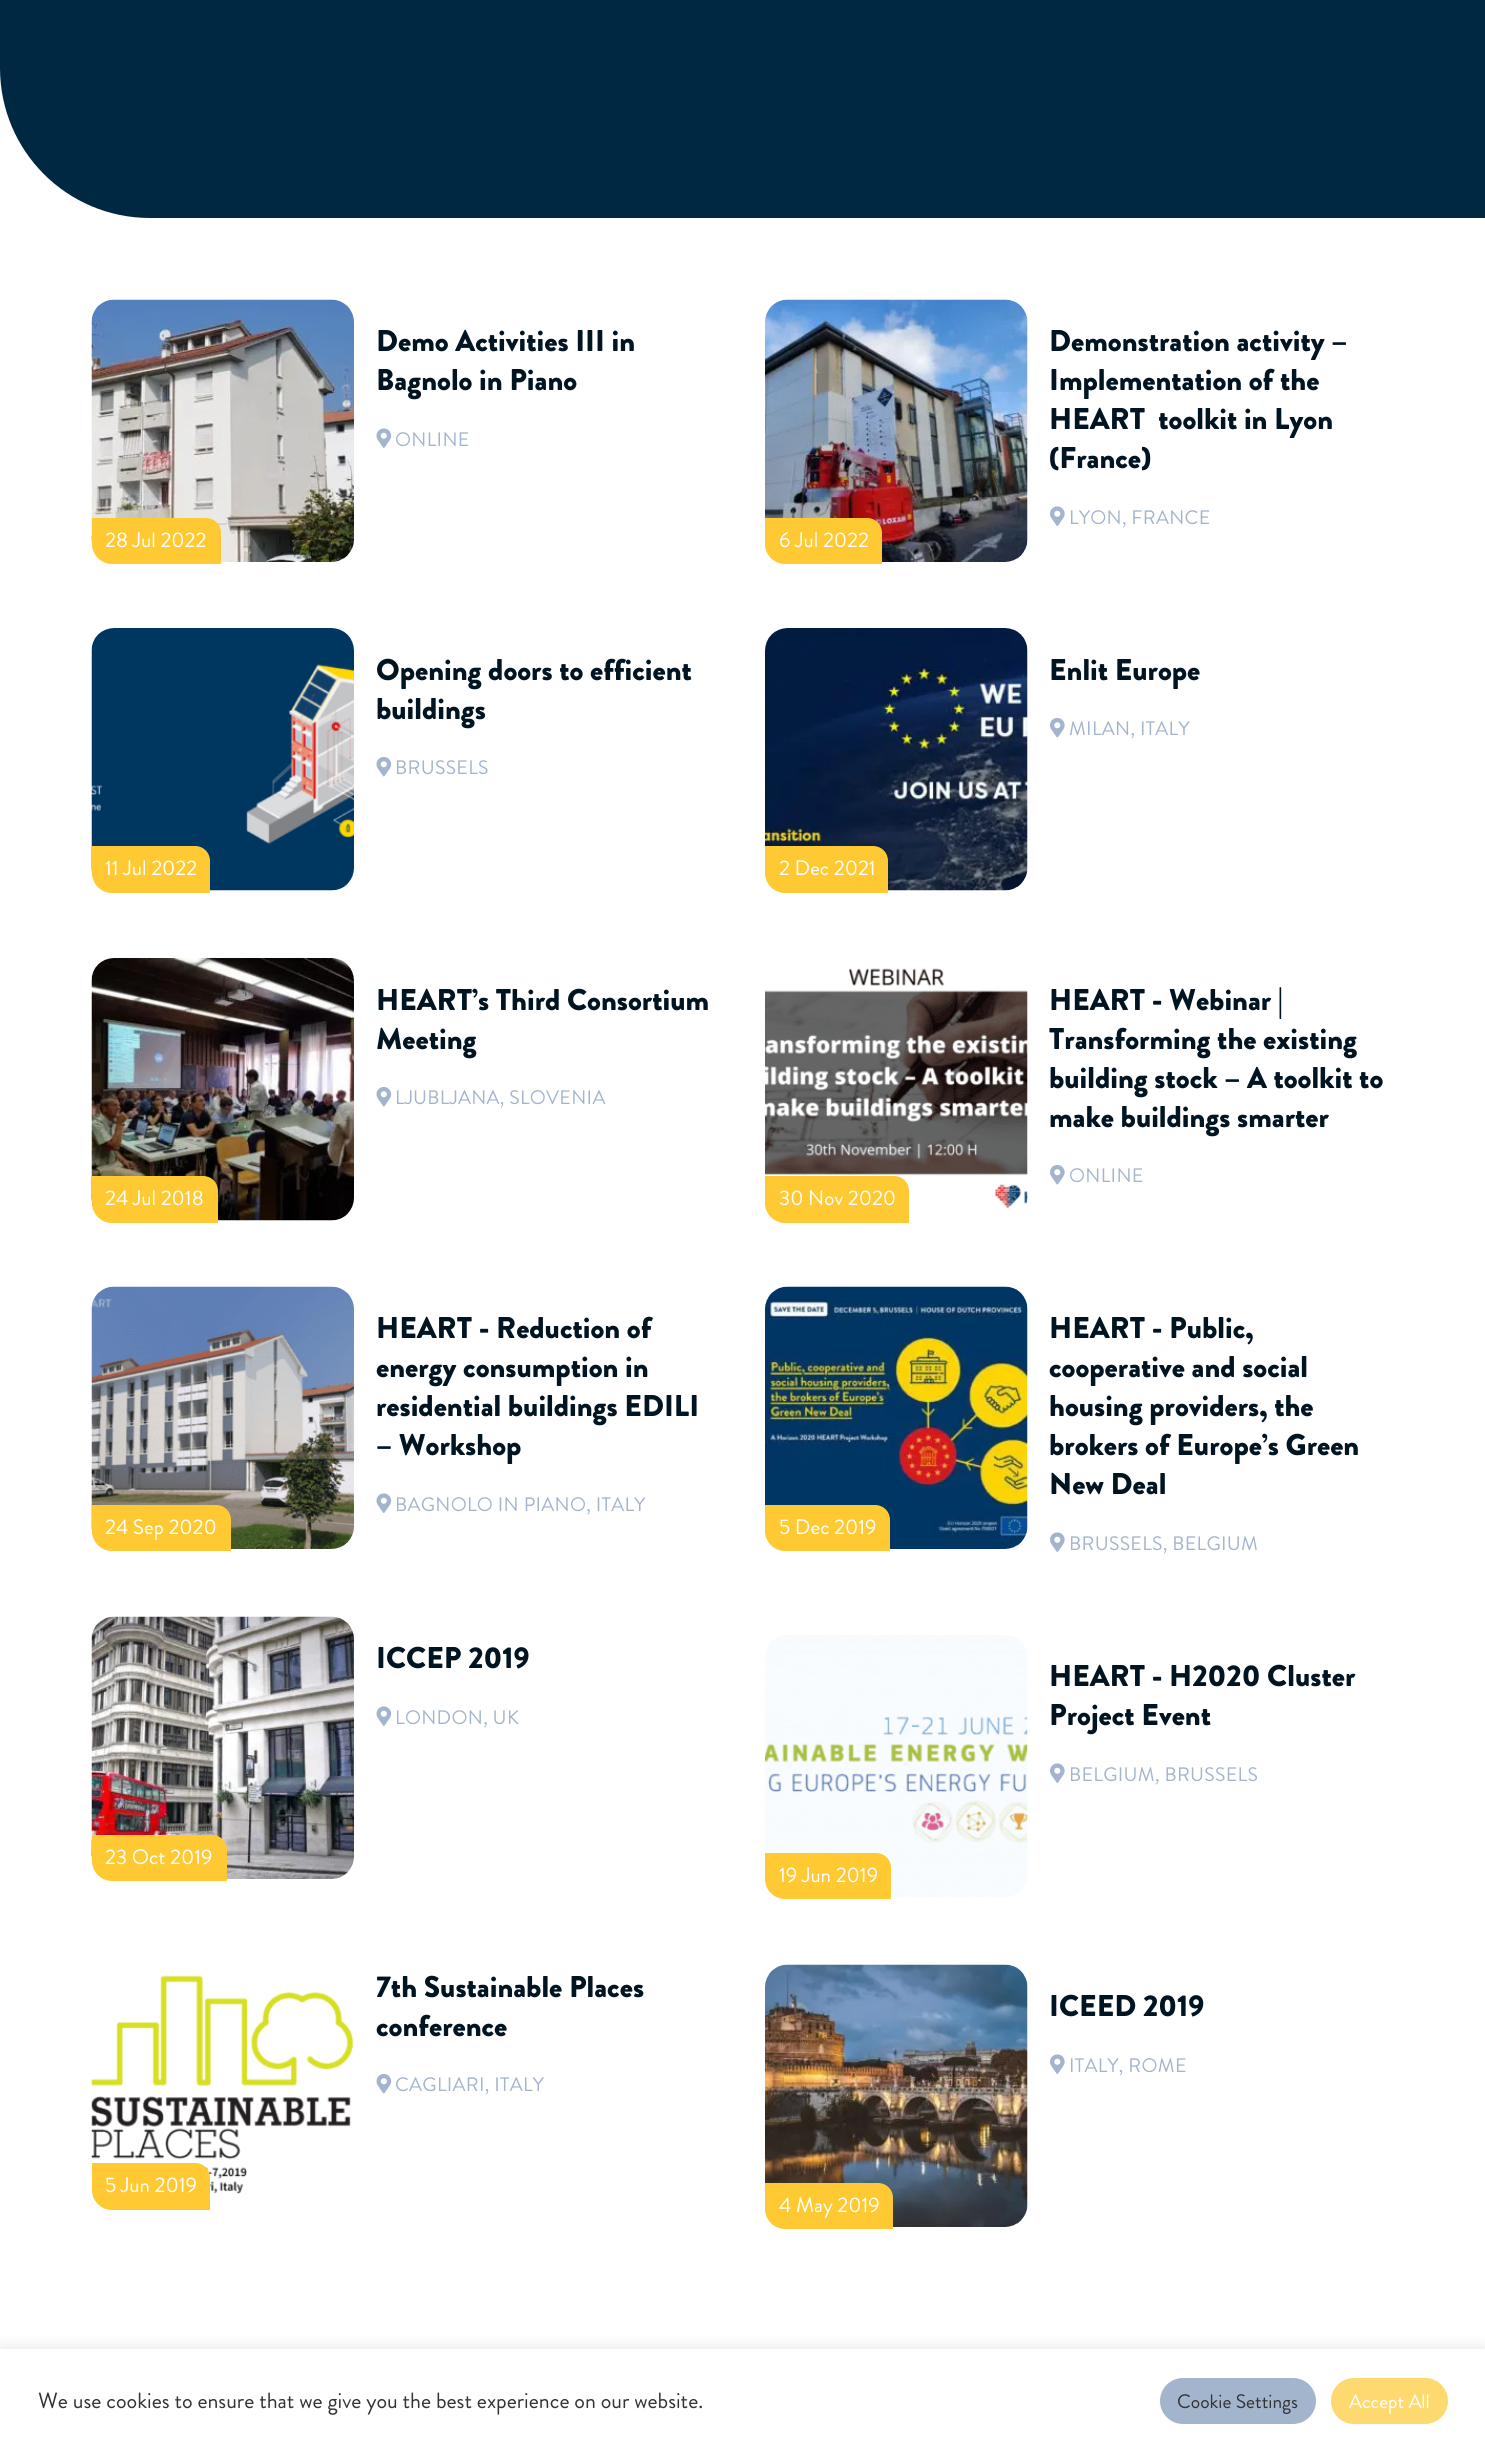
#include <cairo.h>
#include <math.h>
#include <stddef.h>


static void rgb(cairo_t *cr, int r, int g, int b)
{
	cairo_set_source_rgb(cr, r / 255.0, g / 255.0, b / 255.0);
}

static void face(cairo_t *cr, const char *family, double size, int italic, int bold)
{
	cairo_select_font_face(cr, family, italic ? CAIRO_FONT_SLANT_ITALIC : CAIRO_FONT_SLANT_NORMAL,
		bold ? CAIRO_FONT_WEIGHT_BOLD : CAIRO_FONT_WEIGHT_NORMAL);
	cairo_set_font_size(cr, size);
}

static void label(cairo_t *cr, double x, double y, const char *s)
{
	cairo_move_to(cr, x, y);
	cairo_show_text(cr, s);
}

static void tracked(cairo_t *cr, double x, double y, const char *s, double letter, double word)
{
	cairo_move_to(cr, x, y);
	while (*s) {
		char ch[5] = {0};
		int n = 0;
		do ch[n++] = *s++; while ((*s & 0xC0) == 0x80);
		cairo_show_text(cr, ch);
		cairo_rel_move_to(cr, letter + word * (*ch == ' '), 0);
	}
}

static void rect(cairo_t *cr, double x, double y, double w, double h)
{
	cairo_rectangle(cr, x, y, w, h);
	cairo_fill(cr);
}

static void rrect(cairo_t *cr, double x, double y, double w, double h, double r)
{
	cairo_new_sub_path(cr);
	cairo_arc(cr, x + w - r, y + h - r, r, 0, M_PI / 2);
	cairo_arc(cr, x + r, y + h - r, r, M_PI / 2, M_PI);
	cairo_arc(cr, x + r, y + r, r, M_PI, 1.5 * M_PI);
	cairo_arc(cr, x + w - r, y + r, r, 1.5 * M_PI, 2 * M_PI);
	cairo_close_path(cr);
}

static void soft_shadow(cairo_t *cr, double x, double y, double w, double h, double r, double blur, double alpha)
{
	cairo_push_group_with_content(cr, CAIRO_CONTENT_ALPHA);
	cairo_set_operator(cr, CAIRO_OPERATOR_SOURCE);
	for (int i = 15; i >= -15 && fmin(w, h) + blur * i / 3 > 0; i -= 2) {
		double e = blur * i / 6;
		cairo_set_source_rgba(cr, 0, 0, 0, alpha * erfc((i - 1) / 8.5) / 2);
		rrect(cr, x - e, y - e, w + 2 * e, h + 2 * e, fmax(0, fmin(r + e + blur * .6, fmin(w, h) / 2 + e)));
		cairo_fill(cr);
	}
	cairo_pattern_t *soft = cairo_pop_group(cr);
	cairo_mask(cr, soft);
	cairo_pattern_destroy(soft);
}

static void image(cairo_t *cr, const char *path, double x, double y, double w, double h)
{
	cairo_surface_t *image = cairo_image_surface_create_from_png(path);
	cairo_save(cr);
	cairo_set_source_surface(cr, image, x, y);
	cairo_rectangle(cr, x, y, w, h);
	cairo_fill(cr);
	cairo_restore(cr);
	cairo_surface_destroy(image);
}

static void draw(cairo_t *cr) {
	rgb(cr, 255, 255, 255);
	cairo_paint(cr);
	rgb(cr, 0, 40, 67);
	cairo_new_path(cr);
	cairo_move_to(cr, 0, -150);
	cairo_line_to(cr, 1485, -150);
	cairo_line_to(cr, 1485, 218);
	cairo_line_to(cr, 150, 218);
	cairo_curve_to(cr, 67, 218, 0, 151, 0, 68);
	cairo_close_path(cr);
	cairo_fill(cr);
	face(cr, "Brandon Grotesque Black", 30, 0, 0);
	rgb(cr, 0, 20, 34);
	label(cr, 376, 351, "Demo Activities III in");
	label(cr, 376, 390, "Bagnolo in Piano");
	image(cr, "image0.png", 376, 428, 16, 20);
	face(cr, "Brandon Grotesque", 19.5, 0, 0);
	rgb(cr, 163, 180, 205);
	tracked(cr, 395, 446, "ONLINE", 0.3, 0);
	image(cr, "image1.png", 91, 299, 263, 263);
	rgb(cr, 255, 201, 52);
	cairo_new_path(cr);
	cairo_move_to(cr, 92, 518);
	cairo_line_to(cr, 206, 518);
	cairo_curve_to(cr, 214.5, 518, 221, 524.5, 221, 533);
	cairo_line_to(cr, 221, 564);
	cairo_line_to(cr, 112, 564);
	cairo_curve_to(cr, 101, 564, 92, 555, 92, 544);
	cairo_close_path(cr);
	cairo_fill(cr);
	face(cr, "Brandon Grotesque", 21, 0, 0);
	rgb(cr, 255, 255, 255);
	label(cr, 105, 547, "28 Jul 2022");
	face(cr, "Brandon Grotesque Black", 30, 0, 0);
	rgb(cr, 0, 20, 34);
	label(cr, 1049, 351, "Demonstration activity –");
	label(cr, 1049, 390, "Implementation of the");
	label(cr, 1049, 429, "HEART  toolkit in Lyon");
	label(cr, 1049, 468, "(France)");
	image(cr, "image2.png", 1050, 506, 15, 20);
	face(cr, "Brandon Grotesque", 19.5, 0, 0);
	rgb(cr, 163, 180, 205);
	tracked(cr, 1069, 524, "LYON, FRANCE", 0.3, 0);
	image(cr, "image3.png", 765, 299, 263, 263);
	rgb(cr, 255, 201, 52);
	cairo_new_path(cr);
	cairo_move_to(cr, 765, 518);
	cairo_line_to(cr, 867, 518);
	cairo_curve_to(cr, 875.5, 518, 882, 524.5, 882, 533);
	cairo_line_to(cr, 882, 564);
	cairo_line_to(cr, 785, 564);
	cairo_curve_to(cr, 774, 564, 765, 555, 765, 544);
	cairo_close_path(cr);
	cairo_fill(cr);
	face(cr, "Brandon Grotesque", 21, 0, 0);
	rgb(cr, 255, 255, 255);
	label(cr, 779, 547, "6 Jul 2022");
	face(cr, "Brandon Grotesque Black", 30, 0, 0);
	rgb(cr, 0, 20, 34);
	label(cr, 376, 680, "Opening doors to efficient");
	label(cr, 376, 719, "buildings");
	image(cr, "image4.png", 376, 757, 16, 20);
	face(cr, "Brandon Grotesque", 19.5, 0, 0);
	rgb(cr, 163, 180, 205);
	tracked(cr, 395, 774, "BRUSSELS", 0.3, 0);
	image(cr, "image5.png", 91, 628, 263, 263);
	rgb(cr, 255, 201, 52);
	cairo_new_path(cr);
	cairo_move_to(cr, 92, 846);
	cairo_line_to(cr, 195, 846);
	cairo_curve_to(cr, 203.5, 846, 210, 852.5, 210, 861);
	cairo_line_to(cr, 210, 893);
	cairo_line_to(cr, 112, 893);
	cairo_curve_to(cr, 101, 893, 92, 884, 92, 873);
	cairo_close_path(cr);
	cairo_fill(cr);
	face(cr, "Brandon Grotesque", 21, 0, 0);
	rgb(cr, 255, 255, 255);
	label(cr, 105, 875, "11 Jul 2022");
	face(cr, "Brandon Grotesque Black", 30, 0, 0);
	rgb(cr, 0, 20, 34);
	label(cr, 1049, 680, "Enlit Europe");
	image(cr, "image6.png", 1050, 718, 15, 20);
	face(cr, "Brandon Grotesque", 19.5, 0, 0);
	rgb(cr, 163, 180, 205);
	tracked(cr, 1069, 735, "MILAN, ITALY", 0.3, 0);
	image(cr, "image7.png", 765, 628, 263, 263);
	rgb(cr, 255, 201, 52);
	cairo_new_path(cr);
	cairo_move_to(cr, 765, 846);
	cairo_line_to(cr, 873, 846);
	cairo_curve_to(cr, 881.5, 846, 888, 852.5, 888, 861);
	cairo_line_to(cr, 888, 893);
	cairo_line_to(cr, 785, 893);
	cairo_curve_to(cr, 774, 893, 765, 884, 765, 873);
	cairo_close_path(cr);
	cairo_fill(cr);
	face(cr, "Brandon Grotesque", 21, 0, 0);
	rgb(cr, 255, 255, 255);
	label(cr, 779, 875, "2 Dec 2021");
	face(cr, "Brandon Grotesque Black", 30, 0, 0);
	rgb(cr, 0, 20, 34);
	label(cr, 376, 1010, "HEART’s Third Consortium");
	label(cr, 376, 1049, "Meeting");
	image(cr, "image4.png", 376, 1087, 16, 20);
	face(cr, "Brandon Grotesque", 19.5, 0, 0);
	rgb(cr, 163, 180, 205);
	tracked(cr, 395, 1104, "LJUBLJANA, SLOVENIA", 0.3, 0);
	image(cr, "image8.png", 91, 958, 263, 263);
	rgb(cr, 255, 201, 52);
	cairo_new_path(cr);
	cairo_move_to(cr, 92, 1176);
	cairo_line_to(cr, 203, 1176);
	cairo_curve_to(cr, 211.5, 1176, 218, 1182.5, 218, 1191);
	cairo_line_to(cr, 218, 1223);
	cairo_line_to(cr, 112, 1223);
	cairo_curve_to(cr, 101, 1223, 92, 1214, 92, 1203);
	cairo_close_path(cr);
	cairo_fill(cr);
	face(cr, "Brandon Grotesque", 21, 0, 0);
	rgb(cr, 255, 255, 255);
	label(cr, 105, 1205, "24 Jul 2018");
	face(cr, "Brandon Grotesque Black", 30, 0, 0);
	rgb(cr, 0, 20, 34);
	label(cr, 1049, 1010, "HEART - Webinar |");
	label(cr, 1049, 1049, "Transforming the existing");
	label(cr, 1049, 1088, "building stock – A toolkit to");
	label(cr, 1049, 1127, "make buildings smarter");
	image(cr, "image6.png", 1050, 1165, 15, 20);
	face(cr, "Brandon Grotesque", 19.5, 0, 0);
	rgb(cr, 163, 180, 205);
	tracked(cr, 1069, 1182, "ONLINE", 0.3, 0);
	image(cr, "image9.png", 765, 968, 263, 240);
	rgb(cr, 255, 201, 52);
	cairo_new_path(cr);
	cairo_move_to(cr, 765, 1176);
	cairo_line_to(cr, 894, 1176);
	cairo_curve_to(cr, 902.5, 1176, 909, 1182.5, 909, 1191);
	cairo_line_to(cr, 909, 1223);
	cairo_line_to(cr, 785, 1223);
	cairo_curve_to(cr, 774, 1223, 765, 1214, 765, 1203);
	cairo_close_path(cr);
	cairo_fill(cr);
	face(cr, "Brandon Grotesque", 21, 0, 0);
	rgb(cr, 255, 255, 255);
	label(cr, 779, 1205, "30 Nov 2020");
	face(cr, "Brandon Grotesque Black", 30, 0, 0);
	rgb(cr, 0, 20, 34);
	label(cr, 376, 1338, "HEART - Reduction of");
	label(cr, 376, 1377, "energy consumption in");
	label(cr, 376, 1416, "residential buildings EDILI");
	label(cr, 376, 1455, "– Workshop");
	image(cr, "image0.png", 376, 1493, 16, 20);
	face(cr, "Brandon Grotesque", 19.5, 0, 0);
	rgb(cr, 163, 180, 205);
	tracked(cr, 395, 1511, "BAGNOLO IN PIANO, ITALY", 0.3, 0);
	image(cr, "image10.png", 91, 1286, 263, 263);
	rgb(cr, 255, 201, 52);
	cairo_new_path(cr);
	cairo_move_to(cr, 92, 1505);
	cairo_line_to(cr, 216, 1505);
	cairo_curve_to(cr, 224.5, 1505, 231, 1511.5, 231, 1520);
	cairo_line_to(cr, 231, 1551);
	cairo_line_to(cr, 112, 1551);
	cairo_curve_to(cr, 101, 1551, 92, 1542, 92, 1531);
	cairo_close_path(cr);
	cairo_fill(cr);
	face(cr, "Brandon Grotesque", 21, 0, 0);
	rgb(cr, 255, 255, 255);
	label(cr, 105, 1534, "24 Sep 2020");
	image(cr, "image11.png", 765, 1286, 263, 263);
	rgb(cr, 255, 201, 52);
	cairo_new_path(cr);
	cairo_move_to(cr, 765, 1505);
	cairo_line_to(cr, 875, 1505);
	cairo_curve_to(cr, 883.5, 1505, 890, 1511.5, 890, 1520);
	cairo_line_to(cr, 890, 1551);
	cairo_line_to(cr, 785, 1551);
	cairo_curve_to(cr, 774, 1551, 765, 1542, 765, 1531);
	cairo_close_path(cr);
	cairo_fill(cr);
	rgb(cr, 255, 255, 255);
	label(cr, 779, 1534, "5 Dec 2019");
	face(cr, "Brandon Grotesque Black", 30, 0, 0);
	rgb(cr, 0, 20, 34);
	label(cr, 1049, 1338, "HEART - Public,");
	label(cr, 1049, 1377, "cooperative and social");
	label(cr, 1049, 1416, "housing providers, the");
	label(cr, 1049, 1455, "brokers of Europe’s Green");
	label(cr, 1049, 1494, "New Deal");
	image(cr, "image2.png", 1050, 1532, 15, 20);
	face(cr, "Brandon Grotesque", 19.5, 0, 0);
	rgb(cr, 163, 180, 205);
	tracked(cr, 1069, 1550, "BRUSSELS, BELGIUM", 0.3, 0);
	face(cr, "Brandon Grotesque Black", 30, 0, 0);
	rgb(cr, 0, 20, 34);
	label(cr, 376, 1668, "ICCEP 2019");
	image(cr, "image0.png", 376, 1706, 16, 20);
	face(cr, "Brandon Grotesque", 19.5, 0, 0);
	rgb(cr, 163, 180, 205);
	tracked(cr, 395, 1724, "LONDON, UK", 0.3, 0);
	image(cr, "image12.png", 91, 1616, 263, 263);
	rgb(cr, 255, 201, 52);
	cairo_new_path(cr);
	cairo_move_to(cr, 92, 1835);
	cairo_line_to(cr, 212, 1835);
	cairo_curve_to(cr, 220.5, 1835, 227, 1841.5, 227, 1850);
	cairo_line_to(cr, 227, 1881);
	cairo_line_to(cr, 112, 1881);
	cairo_curve_to(cr, 101, 1881, 92, 1872, 92, 1861);
	cairo_close_path(cr);
	cairo_fill(cr);
	face(cr, "Brandon Grotesque", 21, 0, 0);
	rgb(cr, 255, 255, 255);
	label(cr, 105, 1864, "23 Oct 2019");
	face(cr, "Brandon Grotesque Black", 30, 0, 0);
	rgb(cr, 0, 20, 34);
	label(cr, 1049, 1686, "HEART - H2020 Cluster");
	label(cr, 1049, 1725, "Project Event");
	image(cr, "image2.png", 1050, 1763, 15, 20);
	face(cr, "Brandon Grotesque", 19.5, 0, 0);
	rgb(cr, 163, 180, 205);
	tracked(cr, 1069, 1781, "BELGIUM, BRUSSELS", 0.3, 0);
	image(cr, "image13.png", 765, 1635, 263, 262);
	rgb(cr, 255, 201, 52);
	cairo_new_path(cr);
	cairo_move_to(cr, 765, 1853);
	cairo_line_to(cr, 876, 1853);
	cairo_curve_to(cr, 884.5, 1853, 891, 1859.5, 891, 1868);
	cairo_line_to(cr, 891, 1899);
	cairo_line_to(cr, 785, 1899);
	cairo_curve_to(cr, 774, 1899, 765, 1890, 765, 1879);
	cairo_close_path(cr);
	cairo_fill(cr);
	face(cr, "Brandon Grotesque", 21, 0, 0);
	rgb(cr, 255, 255, 255);
	label(cr, 779, 1882, "19 Jun 2019");
	face(cr, "Brandon Grotesque Black", 30, 0, 0);
	rgb(cr, 0, 20, 34);
	label(cr, 376, 1997, "7th Sustainable Places");
	label(cr, 376, 2036, "conference");
	image(cr, "image4.png", 376, 2074, 16, 20);
	face(cr, "Brandon Grotesque", 19.5, 0, 0);
	rgb(cr, 163, 180, 205);
	tracked(cr, 395, 2091, "CAGLIARI, ITALY", 0.3, 0);
	image(cr, "image14.png", 91, 1975, 262, 219);
	rgb(cr, 255, 201, 52);
	cairo_new_path(cr);
	cairo_move_to(cr, 92, 2163);
	cairo_line_to(cr, 195, 2163);
	cairo_curve_to(cr, 203.5, 2163, 210, 2169.5, 210, 2178);
	cairo_line_to(cr, 210, 2210);
	cairo_line_to(cr, 112, 2210);
	cairo_curve_to(cr, 101, 2210, 92, 2201, 92, 2190);
	cairo_close_path(cr);
	cairo_fill(cr);
	face(cr, "Brandon Grotesque", 21, 0, 0);
	rgb(cr, 255, 255, 255);
	label(cr, 105, 2192, "5 Jun 2019");
	face(cr, "Brandon Grotesque Black", 30, 0, 0);
	rgb(cr, 0, 20, 34);
	label(cr, 1049, 2016, "ICEED 2019");
	image(cr, "image2.png", 1050, 2054, 15, 20);
	face(cr, "Brandon Grotesque", 19.5, 0, 0);
	rgb(cr, 163, 180, 205);
	tracked(cr, 1069, 2072, "ITALY, ROME", 0.3, 0);
	image(cr, "image15.png", 765, 1964, 263, 263);
	rgb(cr, 255, 201, 52);
	cairo_new_path(cr);
	cairo_move_to(cr, 765, 2183);
	cairo_line_to(cr, 878, 2183);
	cairo_curve_to(cr, 886.5, 2183, 893, 2189.5, 893, 2198);
	cairo_line_to(cr, 893, 2229);
	cairo_line_to(cr, 785, 2229);
	cairo_curve_to(cr, 774, 2229, 765, 2220, 765, 2209);
	cairo_close_path(cr);
	cairo_fill(cr);
	face(cr, "Brandon Grotesque", 21, 0, 0);
	rgb(cr, 255, 255, 255);
	label(cr, 779, 2212, "4 May 2019");
	rgb(cr, 172, 171, 171);
	soft_shadow(cr, 0, 2348, 1485, 103, 0, 7.5, 0.3);
	rgb(cr, 255, 255, 255);
	rect(cr, 0, 2349, 1485, 103);
	face(cr, "Brandon Grotesque", 22, 0, 0);
	rgb(cr, 51, 51, 51);
	label(cr, 38, 2408, "We use cookies to ensure that we give you the best experience on our website.");
	rgb(cr, 163, 180, 205);
	rrect(cr, 1160, 2378, 156, 46, 23);
	cairo_fill(cr);
	face(cr, "Brandon Grotesque", 19.5, 0, 0);
	rgb(cr, 51, 51, 51);
	label(cr, 1177, 2408, "Cookie Settings");
	rgb(cr, 254, 217, 112);
	rrect(cr, 1331, 2378, 117, 46, 23);
	cairo_fill(cr);
	rgb(cr, 255, 255, 255);
	label(cr, 1349, 2408, "Accept All");
}

int main(void) {
	cairo_surface_t *surface = cairo_image_surface_create(CAIRO_FORMAT_RGB24, 1485, 2452);
	cairo_t *cr = cairo_create(surface);
	cairo_font_options_t *options = cairo_font_options_create();
	cairo_font_options_set_hint_metrics(options, CAIRO_HINT_METRICS_OFF);
	cairo_font_options_set_hint_style(options, CAIRO_HINT_STYLE_NONE);
	cairo_set_font_options(cr, options);
	cairo_set_miter_limit(cr, 4);
	draw(cr);
	cairo_surface_write_to_png(surface, "render.png");
	cairo_font_options_destroy(options);
	cairo_destroy(cr);
	cairo_surface_destroy(surface);
	return 0;
}
